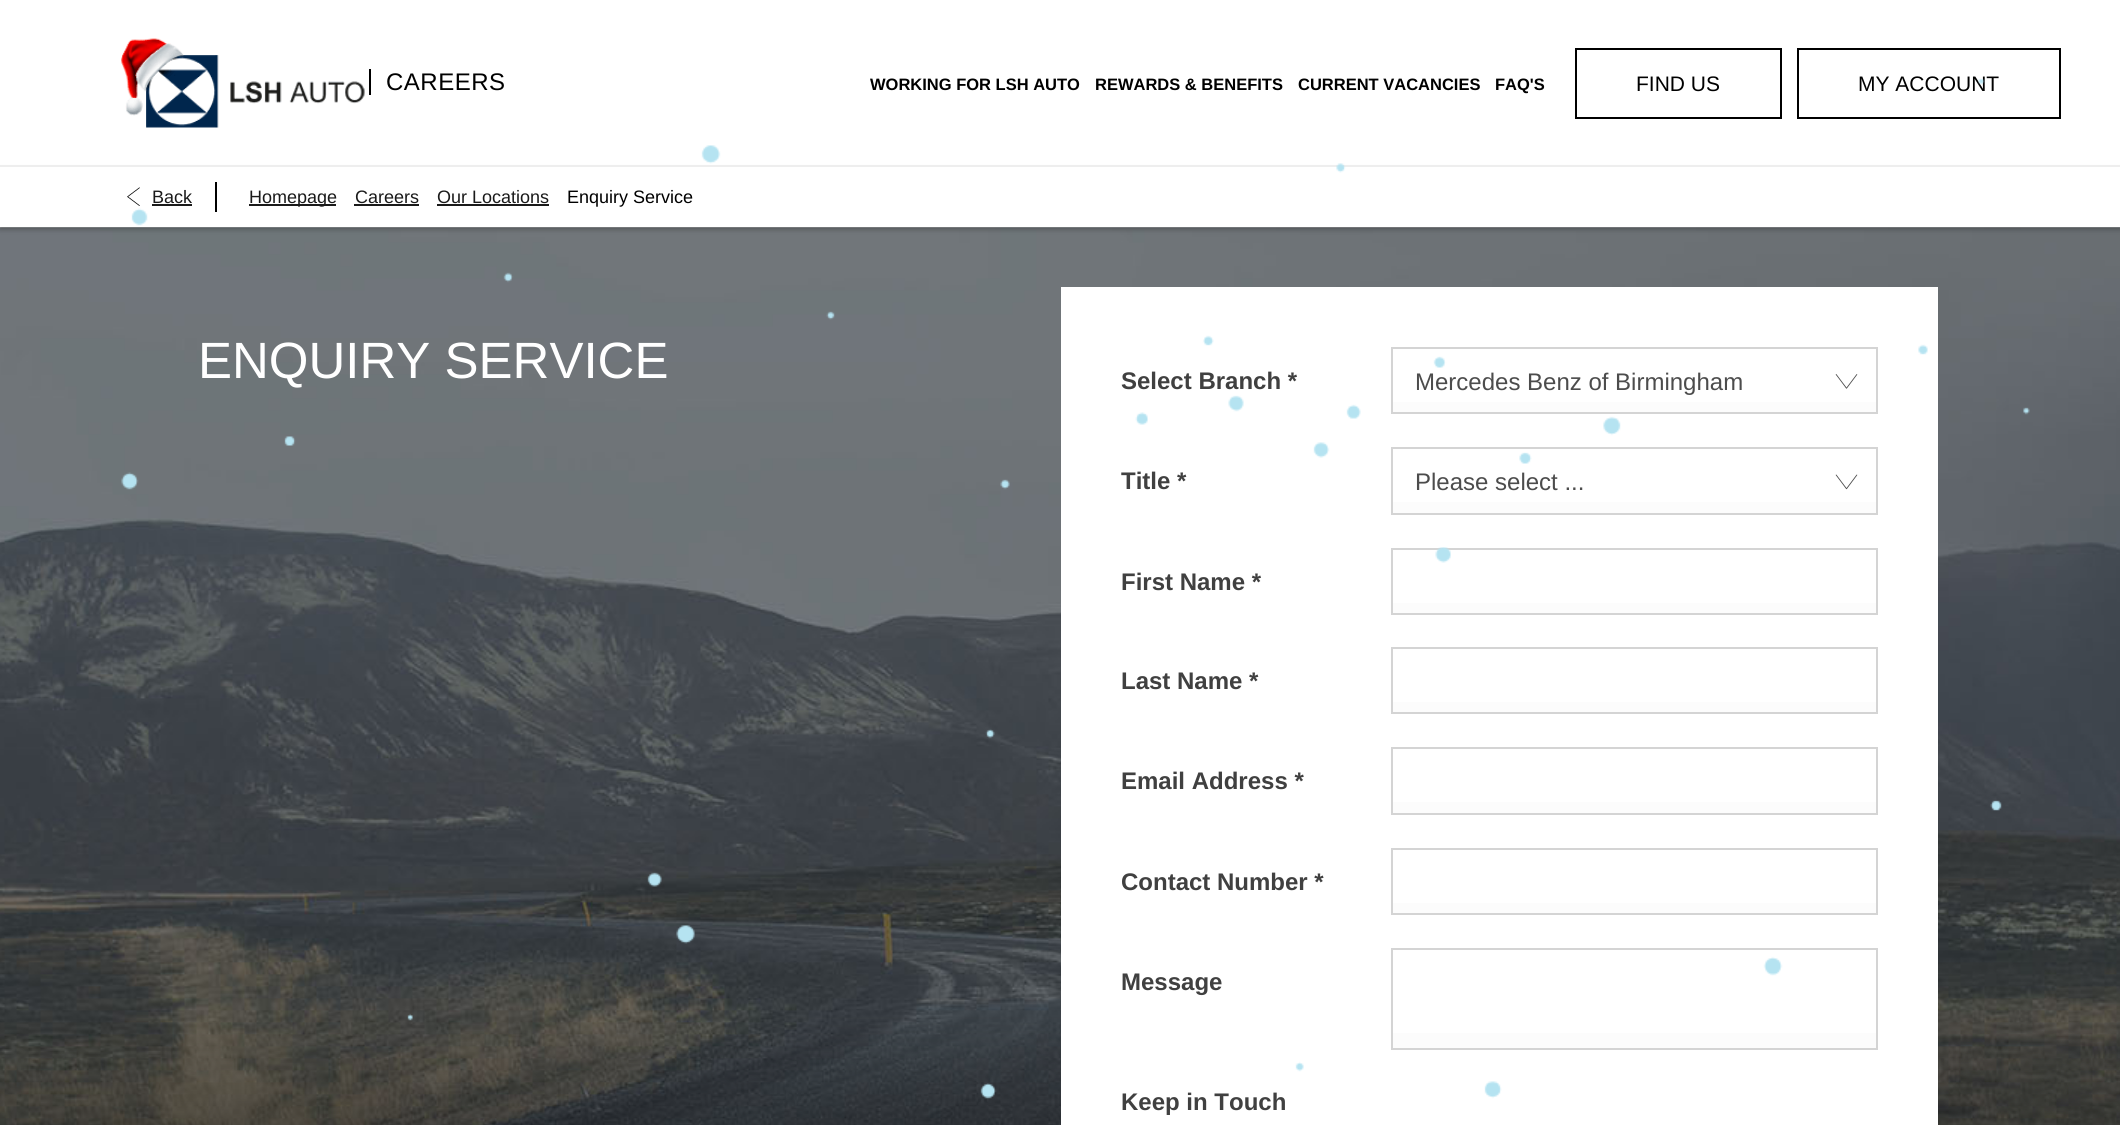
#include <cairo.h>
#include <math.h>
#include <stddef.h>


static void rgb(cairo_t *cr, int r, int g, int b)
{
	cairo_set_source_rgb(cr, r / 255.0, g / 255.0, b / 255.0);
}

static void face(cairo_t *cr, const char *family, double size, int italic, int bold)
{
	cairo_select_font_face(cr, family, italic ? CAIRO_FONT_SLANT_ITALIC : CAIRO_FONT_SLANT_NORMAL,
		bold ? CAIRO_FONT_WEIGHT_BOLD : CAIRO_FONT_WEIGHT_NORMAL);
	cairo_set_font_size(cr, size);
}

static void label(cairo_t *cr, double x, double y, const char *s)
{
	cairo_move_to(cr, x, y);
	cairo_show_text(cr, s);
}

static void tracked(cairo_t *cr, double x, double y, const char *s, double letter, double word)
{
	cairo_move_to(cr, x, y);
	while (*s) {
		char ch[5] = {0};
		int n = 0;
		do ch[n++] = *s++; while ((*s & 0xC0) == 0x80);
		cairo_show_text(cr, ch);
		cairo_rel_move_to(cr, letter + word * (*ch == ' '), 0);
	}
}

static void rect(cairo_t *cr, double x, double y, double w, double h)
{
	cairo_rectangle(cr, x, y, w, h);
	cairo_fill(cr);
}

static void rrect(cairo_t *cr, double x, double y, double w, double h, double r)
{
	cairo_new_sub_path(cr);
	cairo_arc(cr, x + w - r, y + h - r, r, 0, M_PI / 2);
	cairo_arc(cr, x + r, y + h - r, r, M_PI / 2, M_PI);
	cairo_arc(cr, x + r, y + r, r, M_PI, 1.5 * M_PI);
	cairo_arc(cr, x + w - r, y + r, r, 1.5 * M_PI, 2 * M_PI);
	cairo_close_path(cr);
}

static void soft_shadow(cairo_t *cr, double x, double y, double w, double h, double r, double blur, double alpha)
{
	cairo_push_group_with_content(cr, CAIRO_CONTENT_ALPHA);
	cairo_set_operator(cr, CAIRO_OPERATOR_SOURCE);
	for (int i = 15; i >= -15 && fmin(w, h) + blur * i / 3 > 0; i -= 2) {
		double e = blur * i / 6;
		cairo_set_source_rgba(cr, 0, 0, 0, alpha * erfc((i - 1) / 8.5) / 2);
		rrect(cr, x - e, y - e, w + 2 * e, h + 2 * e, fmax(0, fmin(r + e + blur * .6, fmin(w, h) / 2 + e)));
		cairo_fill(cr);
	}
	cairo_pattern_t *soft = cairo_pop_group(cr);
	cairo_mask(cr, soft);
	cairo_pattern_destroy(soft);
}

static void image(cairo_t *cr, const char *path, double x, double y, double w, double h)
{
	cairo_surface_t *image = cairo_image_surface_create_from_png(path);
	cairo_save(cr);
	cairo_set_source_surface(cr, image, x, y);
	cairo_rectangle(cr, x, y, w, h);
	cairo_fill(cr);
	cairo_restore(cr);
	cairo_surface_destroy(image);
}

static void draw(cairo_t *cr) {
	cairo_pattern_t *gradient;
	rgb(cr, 255, 255, 255);
	cairo_paint(cr);
	image(cr, "image2.png", 0, 227, 2120, 898);
	rgb(cr, 0, 0, 0);
	soft_shadow(cr, 0, 0, 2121, 227, 0, 4, 0.3);
	rgb(cr, 255, 255, 255);
	rect(cr, 0, 0, 2120, 227);
	image(cr, "image0.png", 121, 38, 244, 90);
	rgb(cr, 0, 0, 0);
	rect(cr, 369, 69, 2, 26);
	face(cr, "Liberation Sans", 24, 0, 0);
	tracked(cr, 386, 90, "CAREERS", 0.5, 0);
	face(cr, "Liberation Sans", 16.5, 0, 1);
	label(cr, 870, 90, "WORKING FOR LSH AUTO");
	label(cr, 1095, 90, "REWARDS & BENEFITS");
	label(cr, 1298, 90, "CURRENT VACANCIES");
	label(cr, 1495, 90, "FAQ'S");
	cairo_rectangle(cr, 1576, 49, 205, 69);
	cairo_stroke(cr);
	face(cr, "Liberation Sans", 21, 0, 0);
	label(cr, 1636, 91, "FIND US");
	cairo_rectangle(cr, 1798, 49, 262, 69);
	cairo_stroke(cr);
	label(cr, 1858, 91, "MY ACCOUNT");
	cairo_save(cr);
	cairo_set_fill_rule(cr, CAIRO_FILL_RULE_EVEN_ODD);
	cairo_new_path(cr);
	cairo_move_to(cr, 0, 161);
	cairo_line_to(cr, 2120, 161);
	cairo_line_to(cr, 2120, 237);
	cairo_line_to(cr, 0, 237);
	cairo_close_path(cr);
	cairo_move_to(cr, 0, 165);
	cairo_line_to(cr, 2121, 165);
	cairo_line_to(cr, 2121, 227);
	cairo_line_to(cr, 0, 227);
	cairo_close_path(cr);
	cairo_clip(cr);
	rgb(cr, 0, 0, 0);
	soft_shadow(cr, 0, 168, 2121, 62, 0, 2, 0.1);
	cairo_restore(cr);
	rgb(cr, 238, 238, 238);
	rect(cr, 0, 165, 2120, 2);
	image(cr, "image1.png", 127, 187, 13, 19);
	face(cr, "Liberation Sans", 18, 0, 0);
	rgb(cr, 26, 26, 26);
	label(cr, 152, 203, "Back");
	rect(cr, 152, 204, 40, 2);
	rgb(cr, 0, 0, 0);
	rect(cr, 215, 182, 2, 30);
	rgb(cr, 26, 26, 26);
	rect(cr, 249, 204, 87, 2);
	label(cr, 249, 203, "Homepage");
	label(cr, 355, 203, "Careers");
	rect(cr, 354, 204, 65, 2);
	label(cr, 437, 203, "Our Locations");
	rect(cr, 437, 204, 112, 2);
	rgb(cr, 0, 0, 0);
	label(cr, 567, 203, "Enquiry Service");
	face(cr, "Liberation Sans", 51, 0, 0);
	rgb(cr, 255, 255, 255);
	label(cr, 198, 378, "ENQUIRY SERVICE");
	rect(cr, 1061, 287, 877, 838);
	face(cr, "Liberation Sans", 24, 0, 1);
	rgb(cr, 64, 64, 64);
	label(cr, 1121, 389, "Select Branch *");
	gradient = cairo_pattern_create_linear(1634, 348, 1634, 413);
	cairo_pattern_add_color_stop_rgba(gradient, 0, 1, 1, 1, 1);
	cairo_pattern_add_color_stop_rgba(gradient, 1, 0.988, 0.988, 0.988, 1);
	cairo_set_source(cr, gradient);
	cairo_pattern_destroy(gradient);
	rect(cr, 1393, 402, 483, 10);
	cairo_rectangle(cr, 1392, 348, 485, 65);
	rgb(cr, 212, 212, 212);
	cairo_stroke(cr);
	face(cr, "Liberation Sans", 24, 0, 0);
	rgb(cr, 76, 76, 76);
	label(cr, 1415, 390, "Mercedes Benz of Birmingham");
	image(cr, "image3.png", 1835, 374, 23, 15);
	face(cr, "Liberation Sans", 24, 0, 1);
	rgb(cr, 64, 64, 64);
	label(cr, 1121, 489, "Title *");
	gradient = cairo_pattern_create_linear(1634, 449, 1634, 513);
	cairo_pattern_add_color_stop_rgba(gradient, 0, 1, 1, 1, 1);
	cairo_pattern_add_color_stop_rgba(gradient, 1, 0.988, 0.988, 0.988, 1);
	cairo_set_source(cr, gradient);
	cairo_pattern_destroy(gradient);
	rect(cr, 1393, 502, 483, 11);
	cairo_rectangle(cr, 1392, 448, 485, 66);
	rgb(cr, 212, 212, 212);
	cairo_stroke(cr);
	face(cr, "Liberation Sans", 24, 0, 0);
	rgb(cr, 76, 76, 76);
	label(cr, 1415, 490, "Please select ...");
	image(cr, "image4.png", 1835, 474, 23, 16);
	face(cr, "Liberation Sans", 24, 0, 1);
	rgb(cr, 64, 64, 64);
	label(cr, 1121, 590, "First Name *");
	gradient = cairo_pattern_create_linear(1634, 549, 1634, 614);
	cairo_pattern_add_color_stop_rgba(gradient, 0, 1, 1, 1, 1);
	cairo_pattern_add_color_stop_rgba(gradient, 1, 0.988, 0.988, 0.988, 1);
	cairo_set_source(cr, gradient);
	cairo_pattern_destroy(gradient);
	rect(cr, 1393, 603, 483, 10);
	cairo_rectangle(cr, 1392, 549, 485, 65);
	rgb(cr, 212, 212, 212);
	cairo_stroke(cr);
	rgb(cr, 64, 64, 64);
	label(cr, 1121, 689, "Last Name *");
	gradient = cairo_pattern_create_linear(1634, 648, 1634, 713);
	cairo_pattern_add_color_stop_rgba(gradient, 0, 1, 1, 1, 1);
	cairo_pattern_add_color_stop_rgba(gradient, 1, 0.988, 0.988, 0.988, 1);
	cairo_set_source(cr, gradient);
	cairo_pattern_destroy(gradient);
	rect(cr, 1393, 702, 483, 10);
	cairo_rectangle(cr, 1392, 648, 485, 65);
	rgb(cr, 212, 212, 212);
	cairo_stroke(cr);
	rgb(cr, 64, 64, 64);
	label(cr, 1121, 789, "Email Address *");
	gradient = cairo_pattern_create_linear(1634, 749, 1634, 813);
	cairo_pattern_add_color_stop_rgba(gradient, 0, 1, 1, 1, 1);
	cairo_pattern_add_color_stop_rgba(gradient, 1, 0.988, 0.988, 0.988, 1);
	cairo_set_source(cr, gradient);
	cairo_pattern_destroy(gradient);
	rect(cr, 1393, 802, 483, 11);
	cairo_rectangle(cr, 1392, 748, 485, 66);
	rgb(cr, 212, 212, 212);
	cairo_stroke(cr);
	rgb(cr, 64, 64, 64);
	label(cr, 1121, 890, "Contact Number *");
	gradient = cairo_pattern_create_linear(1634, 849, 1634, 914);
	cairo_pattern_add_color_stop_rgba(gradient, 0, 1, 1, 1, 1);
	cairo_pattern_add_color_stop_rgba(gradient, 1, 0.988, 0.988, 0.988, 1);
	cairo_set_source(cr, gradient);
	cairo_pattern_destroy(gradient);
	rect(cr, 1393, 903, 483, 10);
	cairo_rectangle(cr, 1392, 849, 485, 65);
	rgb(cr, 212, 212, 212);
	cairo_stroke(cr);
	rgb(cr, 64, 64, 64);
	label(cr, 1121, 990, "Message");
	gradient = cairo_pattern_create_linear(1634, 950, 1634, 1049);
	cairo_pattern_add_color_stop_rgba(gradient, 0, 1, 1, 1, 1);
	cairo_pattern_add_color_stop_rgba(gradient, 1, 0.988, 0.988, 0.988, 1);
	cairo_set_source(cr, gradient);
	cairo_pattern_destroy(gradient);
	rect(cr, 1393, 1033, 483, 15);
	cairo_rectangle(cr, 1392, 949, 485, 100);
	rgb(cr, 212, 212, 212);
	cairo_stroke(cr);
	rgb(cr, 64, 64, 64);
	label(cr, 1121, 1110, "Keep in Touch");
	image(cr, "image5.png", 121, 78, 1909, 1021);
}

int main(void) {
	cairo_surface_t *surface = cairo_image_surface_create(CAIRO_FORMAT_RGB24, 2120, 1125);
	cairo_t *cr = cairo_create(surface);
	cairo_font_options_t *options = cairo_font_options_create();
	cairo_font_options_set_hint_metrics(options, CAIRO_HINT_METRICS_OFF);
	cairo_font_options_set_hint_style(options, CAIRO_HINT_STYLE_NONE);
	cairo_set_font_options(cr, options);
	cairo_set_miter_limit(cr, 4);
	draw(cr);
	cairo_surface_write_to_png(surface, "render.png");
	cairo_font_options_destroy(options);
	cairo_destroy(cr);
	cairo_surface_destroy(surface);
	return 0;
}
